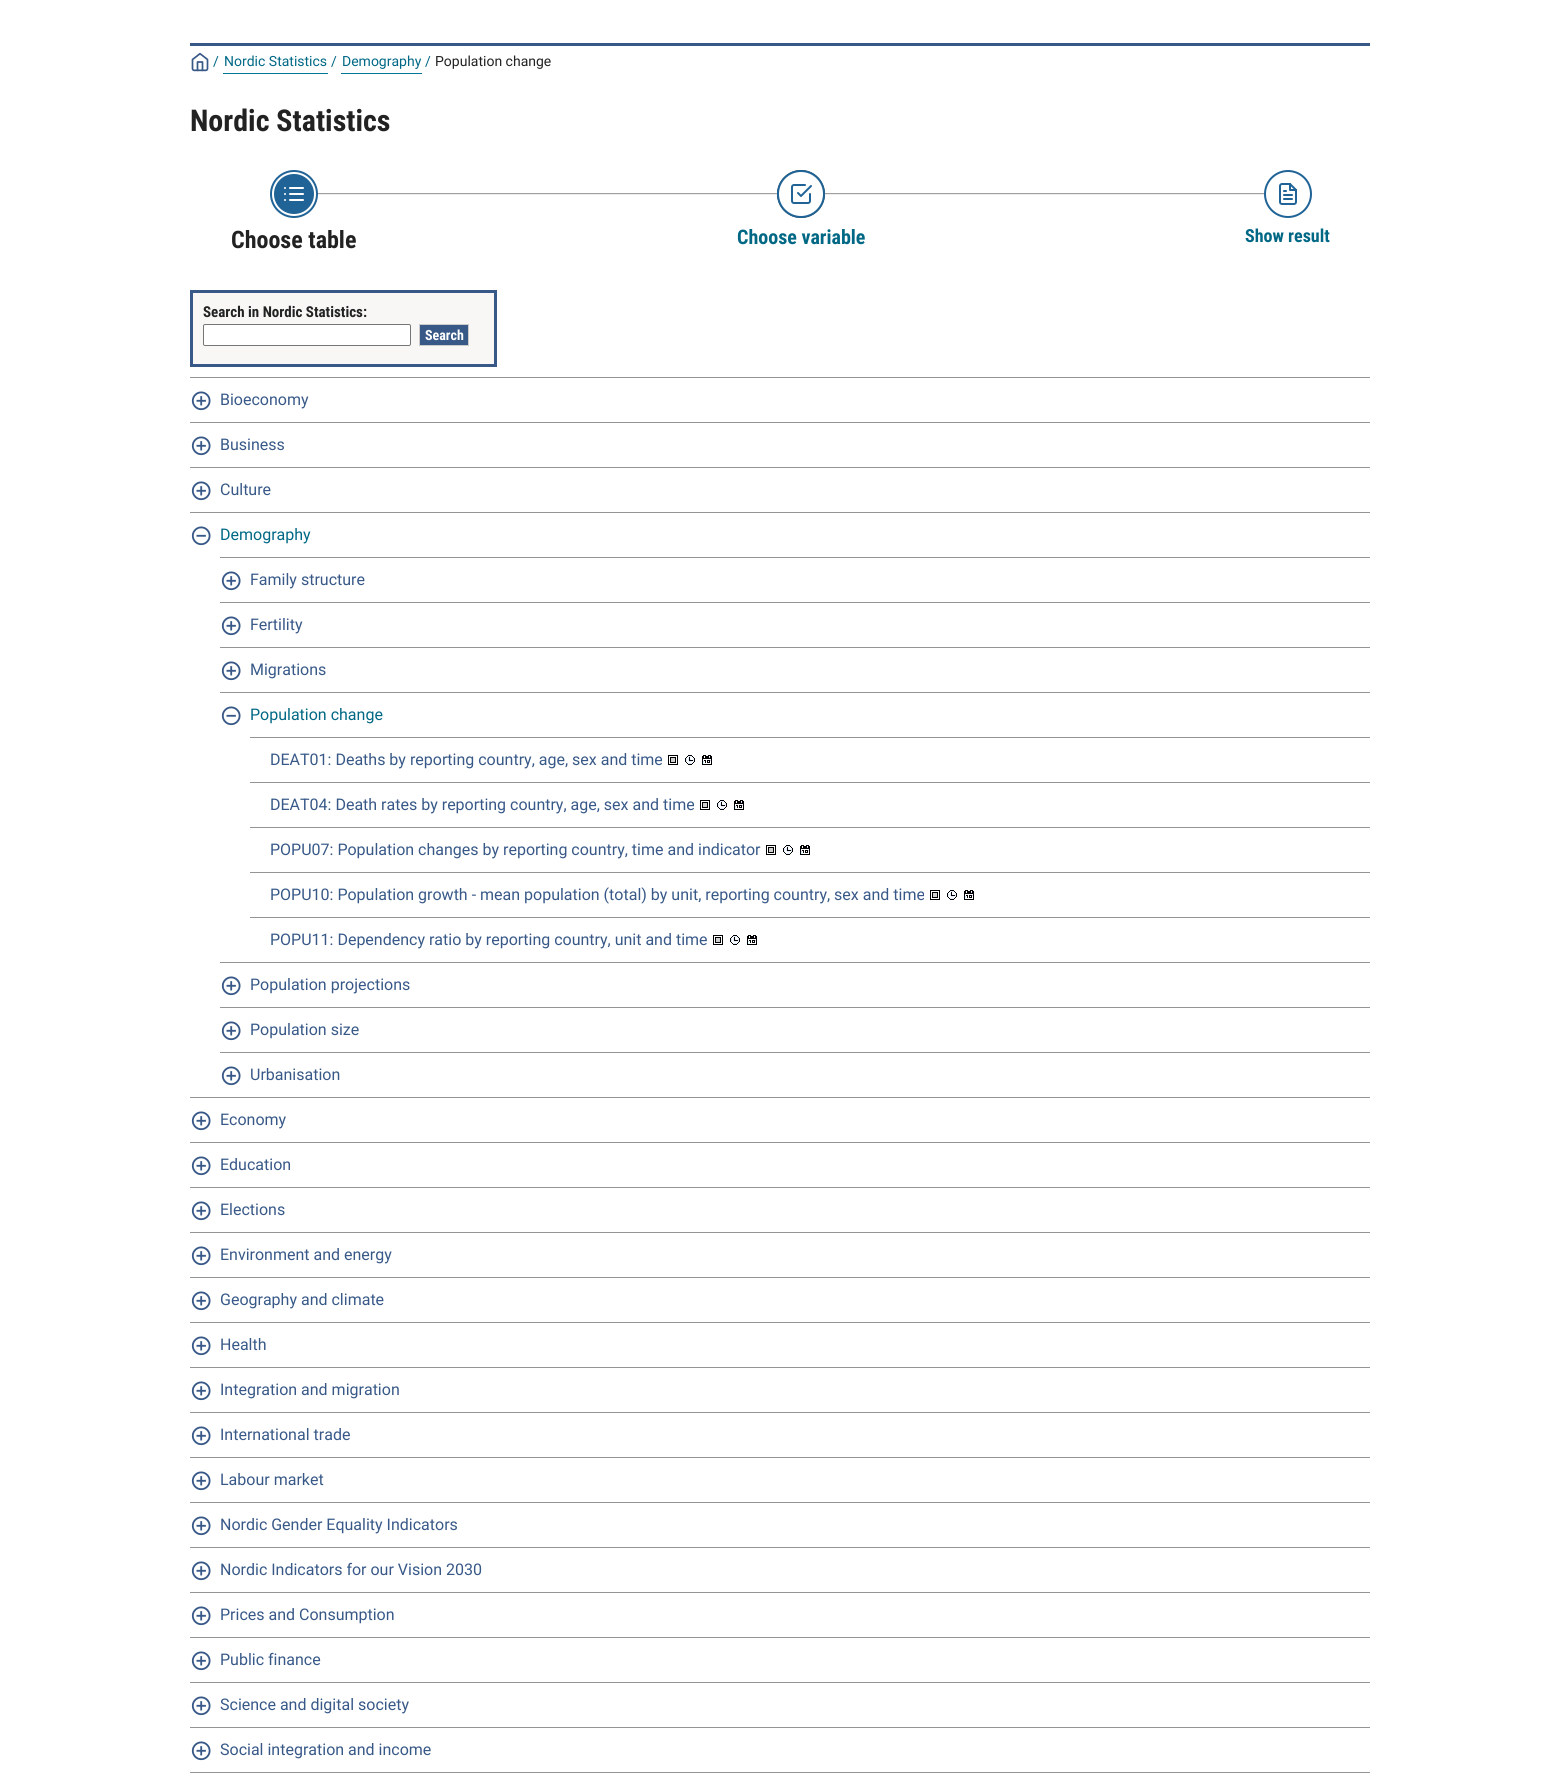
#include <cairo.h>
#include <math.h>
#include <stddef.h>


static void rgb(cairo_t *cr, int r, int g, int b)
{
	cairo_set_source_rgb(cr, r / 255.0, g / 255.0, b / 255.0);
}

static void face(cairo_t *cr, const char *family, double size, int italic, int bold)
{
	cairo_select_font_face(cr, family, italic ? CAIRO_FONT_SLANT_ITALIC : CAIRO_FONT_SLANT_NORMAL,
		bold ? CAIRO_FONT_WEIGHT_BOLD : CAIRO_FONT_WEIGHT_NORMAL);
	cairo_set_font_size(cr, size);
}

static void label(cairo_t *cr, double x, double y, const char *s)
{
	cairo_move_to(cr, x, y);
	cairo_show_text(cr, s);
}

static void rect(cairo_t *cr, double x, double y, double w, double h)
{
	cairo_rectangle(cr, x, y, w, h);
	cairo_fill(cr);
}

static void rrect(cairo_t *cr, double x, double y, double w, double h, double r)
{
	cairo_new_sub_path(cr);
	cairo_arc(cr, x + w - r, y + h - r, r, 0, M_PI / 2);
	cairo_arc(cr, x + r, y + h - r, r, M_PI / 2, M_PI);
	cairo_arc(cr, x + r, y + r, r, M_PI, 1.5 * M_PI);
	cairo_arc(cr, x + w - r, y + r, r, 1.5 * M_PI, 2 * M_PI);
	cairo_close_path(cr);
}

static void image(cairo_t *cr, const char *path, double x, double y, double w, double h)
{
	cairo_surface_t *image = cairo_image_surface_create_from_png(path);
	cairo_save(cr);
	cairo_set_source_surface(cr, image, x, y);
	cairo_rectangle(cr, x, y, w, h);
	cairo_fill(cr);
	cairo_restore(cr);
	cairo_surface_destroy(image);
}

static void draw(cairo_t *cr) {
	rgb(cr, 255, 255, 255);
	cairo_paint(cr);
	rgb(cr, 56, 89, 136);
	rect(cr, 190, 43, 1180, 3);
	image(cr, "image0.png", 191, 52, 18, 20);
	face(cr, "Roboto", 14, 0, 0);
	rgb(cr, 0, 104, 133);
	label(cr, 213, 66, "/");
	rgb(cr, 0, 118, 148);
	rect(cr, 223, 73, 105, 1);
	rgb(cr, 0, 104, 133);
	label(cr, 224, 66, "Nordic Statistics");
	label(cr, 331, 66, "/");
	rgb(cr, 0, 118, 148);
	rect(cr, 341, 73, 81, 1);
	rgb(cr, 0, 104, 133);
	label(cr, 342, 66, "Demography");
	label(cr, 425, 66, "/");
	rgb(cr, 34, 34, 34);
	label(cr, 435, 66, "Population change");
	face(cr, "Roboto Condensed", 30, 0, 1);
	label(cr, 190, 131, "Nordic Statistics");
	rgb(cr, 159, 159, 159);
	rect(cr, 318, 193, 459, 1);
	rgb(cr, 238, 238, 238);
	rect(cr, 318, 194, 459, 1);
	rgb(cr, 159, 159, 159);
	rect(cr, 825, 193, 439, 1);
	rgb(cr, 238, 238, 238);
	rect(cr, 825, 194, 439, 1);
	image(cr, "image1.png", 270, 170, 48, 48);
	face(cr, "Roboto Condensed", 24, 0, 1);
	rgb(cr, 34, 34, 34);
	label(cr, 231, 248, "Choose table");
	image(cr, "image2.png", 777, 170, 48, 48);
	face(cr, "Roboto Condensed", 20, 0, 1);
	rgb(cr, 0, 104, 133);
	label(cr, 737, 244, "Choose variable");
	image(cr, "image3.png", 1264, 170, 48, 48);
	face(cr, "Roboto Condensed", 18, 0, 1);
	label(cr, 1245, 242, "Show result");
	rgb(cr, 248, 247, 246);
	cairo_rectangle(cr, 191.5, 291.5, 304, 74);
	cairo_fill_preserve(cr);
	rgb(cr, 56, 89, 136);
	cairo_set_line_width(cr, 3);
	cairo_stroke(cr);
	face(cr, "Roboto Condensed", 15, 0, 1);
	rgb(cr, 34, 34, 34);
	label(cr, 203, 317, "Search in Nordic Statistics:");
	rgb(cr, 255, 255, 255);
	rrect(cr, 203.5, 324.5, 207, 21, 1.5);
	cairo_fill_preserve(cr);
	rgb(cr, 118, 118, 118);
	cairo_set_line_width(cr, 1);
	cairo_stroke(cr);
	rgb(cr, 56, 89, 136);
	cairo_rectangle(cr, 419.5, 324.5, 49, 21);
	cairo_fill_preserve(cr);
	rgb(cr, 204, 204, 204);
	cairo_stroke(cr);
	face(cr, "Roboto Condensed", 14, 0, 1);
	rgb(cr, 255, 255, 255);
	label(cr, 425, 340, "Search");
	rgb(cr, 148, 148, 148);
	rect(cr, 190, 377, 1180, 1);
	image(cr, "image4.png", 191, 391, 20, 20);
	face(cr, "Roboto", 16, 0, 0);
	rgb(cr, 56, 89, 136);
	label(cr, 220, 405, "Bioeconomy");
	rgb(cr, 148, 148, 148);
	rect(cr, 190, 422, 1180, 1);
	image(cr, "image4.png", 191, 436, 20, 20);
	rgb(cr, 56, 89, 136);
	label(cr, 220, 450, "Business");
	rgb(cr, 148, 148, 148);
	rect(cr, 190, 467, 1180, 1);
	image(cr, "image4.png", 191, 481, 20, 20);
	rgb(cr, 56, 89, 136);
	label(cr, 220, 495, "Culture");
	rgb(cr, 148, 148, 148);
	rect(cr, 190, 512, 1180, 1);
	image(cr, "image5.png", 191, 526, 20, 20);
	rgb(cr, 0, 104, 133);
	label(cr, 220, 540, "Demography");
	rgb(cr, 148, 148, 148);
	rect(cr, 220, 557, 1150, 1);
	image(cr, "image4.png", 221, 571, 20, 20);
	rgb(cr, 56, 89, 136);
	label(cr, 250, 585, "Family structure");
	rgb(cr, 148, 148, 148);
	rect(cr, 220, 602, 1150, 1);
	image(cr, "image4.png", 221, 616, 20, 20);
	rgb(cr, 56, 89, 136);
	label(cr, 250, 630, "Fertility");
	rgb(cr, 148, 148, 148);
	rect(cr, 220, 647, 1150, 1);
	image(cr, "image4.png", 221, 661, 20, 20);
	rgb(cr, 56, 89, 136);
	label(cr, 250, 675, "Migrations");
	rgb(cr, 148, 148, 148);
	rect(cr, 220, 692, 1150, 1);
	image(cr, "image5.png", 221, 706, 20, 20);
	rgb(cr, 0, 104, 133);
	label(cr, 250, 720, "Population change");
	rgb(cr, 148, 148, 148);
	rect(cr, 250, 737, 1120, 1);
	rgb(cr, 56, 89, 136);
	label(cr, 270, 765, "DEAT01: Deaths by reporting country, age, sex and time");
	image(cr, "image6.png", 668, 755, 10, 10);
	image(cr, "image7.png", 685, 755, 10, 10);
	image(cr, "image8.png", 702, 755, 10, 10);
	rgb(cr, 148, 148, 148);
	rect(cr, 250, 782, 1120, 1);
	rgb(cr, 56, 89, 136);
	label(cr, 270, 810, "DEAT04: Death rates by reporting country, age, sex and time");
	image(cr, "image6.png", 700, 800, 10, 10);
	image(cr, "image7.png", 717, 800, 10, 10);
	image(cr, "image8.png", 734, 800, 10, 10);
	rgb(cr, 148, 148, 148);
	rect(cr, 250, 827, 1120, 1);
	rgb(cr, 56, 89, 136);
	label(cr, 270, 855, "POPU07: Population changes by reporting country, time and indicator");
	image(cr, "image6.png", 766, 845, 10, 10);
	image(cr, "image7.png", 783, 845, 10, 10);
	image(cr, "image8.png", 800, 845, 10, 10);
	rgb(cr, 148, 148, 148);
	rect(cr, 250, 872, 1120, 1);
	rgb(cr, 56, 89, 136);
	label(cr, 270, 900, "POPU10: Population growth - mean population (total) by unit, reporting country, sex and time");
	image(cr, "image6.png", 930, 890, 10, 10);
	image(cr, "image7.png", 947, 890, 10, 10);
	image(cr, "image8.png", 964, 890, 10, 10);
	rgb(cr, 148, 148, 148);
	rect(cr, 250, 917, 1120, 1);
	rgb(cr, 56, 89, 136);
	label(cr, 270, 945, "POPU11: Dependency ratio by reporting country, unit and time");
	image(cr, "image6.png", 713, 935, 10, 10);
	image(cr, "image7.png", 730, 935, 10, 10);
	image(cr, "image8.png", 747, 935, 10, 10);
	rgb(cr, 148, 148, 148);
	rect(cr, 220, 962, 1150, 1);
	image(cr, "image4.png", 221, 976, 20, 20);
	rgb(cr, 56, 89, 136);
	label(cr, 250, 990, "Population projections");
	rgb(cr, 148, 148, 148);
	rect(cr, 220, 1007, 1150, 1);
	image(cr, "image4.png", 221, 1021, 20, 20);
	rgb(cr, 56, 89, 136);
	label(cr, 250, 1035, "Population size");
	rgb(cr, 148, 148, 148);
	rect(cr, 220, 1052, 1150, 1);
	image(cr, "image4.png", 221, 1066, 20, 20);
	rgb(cr, 56, 89, 136);
	label(cr, 250, 1080, "Urbanisation");
	rgb(cr, 148, 148, 148);
	rect(cr, 190, 1097, 1180, 1);
	image(cr, "image4.png", 191, 1111, 20, 20);
	rgb(cr, 56, 89, 136);
	label(cr, 220, 1125, "Economy");
	rgb(cr, 148, 148, 148);
	rect(cr, 190, 1142, 1180, 1);
	image(cr, "image4.png", 191, 1156, 20, 20);
	rgb(cr, 56, 89, 136);
	label(cr, 220, 1170, "Education");
	rgb(cr, 148, 148, 148);
	rect(cr, 190, 1187, 1180, 1);
	image(cr, "image4.png", 191, 1201, 20, 20);
	rgb(cr, 56, 89, 136);
	label(cr, 220, 1215, "Elections");
	rgb(cr, 148, 148, 148);
	rect(cr, 190, 1232, 1180, 1);
	image(cr, "image4.png", 191, 1246, 20, 20);
	rgb(cr, 56, 89, 136);
	label(cr, 220, 1260, "Environment and energy");
	rgb(cr, 148, 148, 148);
	rect(cr, 190, 1277, 1180, 1);
	image(cr, "image4.png", 191, 1291, 20, 20);
	rgb(cr, 56, 89, 136);
	label(cr, 220, 1305, "Geography and climate");
	rgb(cr, 148, 148, 148);
	rect(cr, 190, 1322, 1180, 1);
	image(cr, "image4.png", 191, 1336, 20, 20);
	rgb(cr, 56, 89, 136);
	label(cr, 220, 1350, "Health");
	rgb(cr, 148, 148, 148);
	rect(cr, 190, 1367, 1180, 1);
	image(cr, "image4.png", 191, 1381, 20, 20);
	rgb(cr, 56, 89, 136);
	label(cr, 220, 1395, "Integration and migration");
	rgb(cr, 148, 148, 148);
	rect(cr, 190, 1412, 1180, 1);
	image(cr, "image4.png", 191, 1426, 20, 20);
	rgb(cr, 56, 89, 136);
	label(cr, 220, 1440, "International trade");
	rgb(cr, 148, 148, 148);
	rect(cr, 190, 1457, 1180, 1);
	image(cr, "image4.png", 191, 1471, 20, 20);
	rgb(cr, 56, 89, 136);
	label(cr, 220, 1485, "Labour market");
	rgb(cr, 148, 148, 148);
	rect(cr, 190, 1502, 1180, 1);
	image(cr, "image4.png", 191, 1516, 20, 20);
	rgb(cr, 56, 89, 136);
	label(cr, 220, 1530, "Nordic Gender Equality Indicators");
	rgb(cr, 148, 148, 148);
	rect(cr, 190, 1547, 1180, 1);
	image(cr, "image4.png", 191, 1561, 20, 20);
	rgb(cr, 56, 89, 136);
	label(cr, 220, 1575, "Nordic Indicators for our Vision 2030");
	rgb(cr, 148, 148, 148);
	rect(cr, 190, 1592, 1180, 1);
	image(cr, "image4.png", 191, 1606, 20, 20);
	rgb(cr, 56, 89, 136);
	label(cr, 220, 1620, "Prices and Consumption");
	rgb(cr, 148, 148, 148);
	rect(cr, 190, 1637, 1180, 1);
	image(cr, "image4.png", 191, 1651, 20, 20);
	rgb(cr, 56, 89, 136);
	label(cr, 220, 1665, "Public finance");
	rgb(cr, 148, 148, 148);
	rect(cr, 190, 1682, 1180, 1);
	image(cr, "image4.png", 191, 1696, 20, 20);
	rgb(cr, 56, 89, 136);
	label(cr, 220, 1710, "Science and digital society");
	rgb(cr, 148, 148, 148);
	rect(cr, 190, 1727, 1180, 1);
	image(cr, "image4.png", 191, 1741, 20, 20);
	rgb(cr, 56, 89, 136);
	label(cr, 220, 1755, "Social integration and income");
	rgb(cr, 148, 148, 148);
	rect(cr, 190, 1772, 1180, 1);
}

int main(void) {
	cairo_surface_t *surface = cairo_image_surface_create(CAIRO_FORMAT_RGB24, 1560, 1781);
	cairo_t *cr = cairo_create(surface);
	cairo_font_options_t *options = cairo_font_options_create();
	cairo_font_options_set_hint_metrics(options, CAIRO_HINT_METRICS_OFF);
	cairo_font_options_set_hint_style(options, CAIRO_HINT_STYLE_NONE);
	cairo_set_font_options(cr, options);
	cairo_set_miter_limit(cr, 4);
	draw(cr);
	cairo_surface_write_to_png(surface, "render.png");
	cairo_font_options_destroy(options);
	cairo_destroy(cr);
	cairo_surface_destroy(surface);
	return 0;
}
